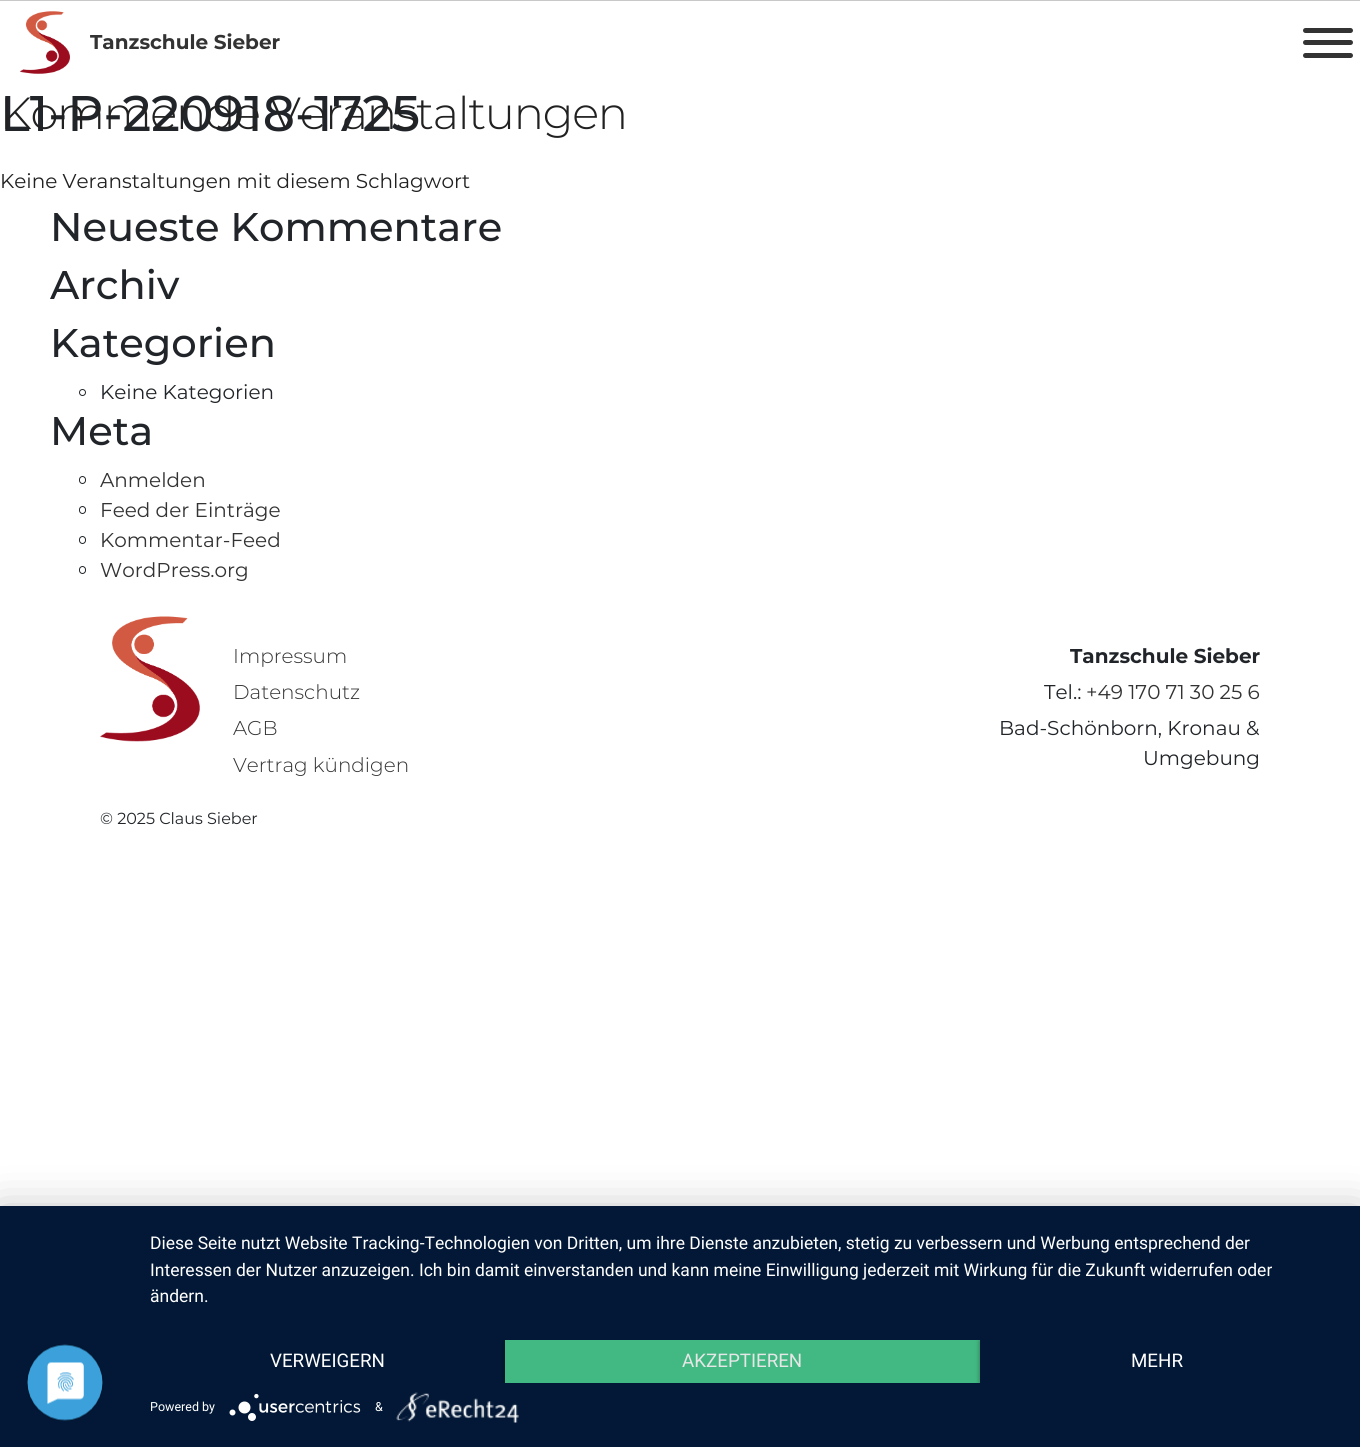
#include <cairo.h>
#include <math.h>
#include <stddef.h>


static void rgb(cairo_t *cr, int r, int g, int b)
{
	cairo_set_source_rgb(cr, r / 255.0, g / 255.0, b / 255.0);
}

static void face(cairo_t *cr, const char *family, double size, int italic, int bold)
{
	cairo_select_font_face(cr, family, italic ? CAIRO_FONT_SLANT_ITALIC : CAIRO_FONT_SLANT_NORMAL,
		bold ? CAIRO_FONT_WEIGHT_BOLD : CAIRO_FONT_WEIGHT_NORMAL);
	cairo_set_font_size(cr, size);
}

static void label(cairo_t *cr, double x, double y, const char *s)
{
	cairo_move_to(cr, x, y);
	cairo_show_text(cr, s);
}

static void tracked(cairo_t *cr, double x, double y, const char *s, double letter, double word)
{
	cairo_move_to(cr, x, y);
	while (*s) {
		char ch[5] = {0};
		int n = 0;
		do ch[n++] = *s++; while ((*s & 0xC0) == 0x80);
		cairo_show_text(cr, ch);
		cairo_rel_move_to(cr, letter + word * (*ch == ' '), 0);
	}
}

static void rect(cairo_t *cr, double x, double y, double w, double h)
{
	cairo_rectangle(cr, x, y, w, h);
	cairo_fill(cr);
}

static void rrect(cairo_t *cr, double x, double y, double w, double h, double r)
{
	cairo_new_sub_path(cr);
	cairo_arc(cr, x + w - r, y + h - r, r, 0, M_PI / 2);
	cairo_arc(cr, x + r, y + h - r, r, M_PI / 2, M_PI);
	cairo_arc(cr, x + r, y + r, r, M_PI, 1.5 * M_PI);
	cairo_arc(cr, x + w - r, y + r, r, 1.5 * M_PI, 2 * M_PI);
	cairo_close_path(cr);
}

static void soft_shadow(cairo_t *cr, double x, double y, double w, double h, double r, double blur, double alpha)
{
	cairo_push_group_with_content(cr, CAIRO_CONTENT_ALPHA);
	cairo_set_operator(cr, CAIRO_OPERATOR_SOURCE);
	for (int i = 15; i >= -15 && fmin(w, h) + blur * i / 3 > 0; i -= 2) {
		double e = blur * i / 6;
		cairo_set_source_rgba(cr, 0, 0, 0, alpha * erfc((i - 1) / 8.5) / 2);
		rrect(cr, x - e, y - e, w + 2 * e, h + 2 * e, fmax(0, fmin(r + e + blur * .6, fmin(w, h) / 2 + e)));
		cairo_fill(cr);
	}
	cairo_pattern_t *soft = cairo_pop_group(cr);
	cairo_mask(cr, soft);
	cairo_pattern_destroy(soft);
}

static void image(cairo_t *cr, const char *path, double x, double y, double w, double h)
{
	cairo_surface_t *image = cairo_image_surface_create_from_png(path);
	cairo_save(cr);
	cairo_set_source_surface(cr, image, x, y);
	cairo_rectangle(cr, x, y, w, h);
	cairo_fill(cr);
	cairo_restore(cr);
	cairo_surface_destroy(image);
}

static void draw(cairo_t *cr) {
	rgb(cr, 255, 255, 255);
	cairo_paint(cr);
	rgb(cr, 200, 200, 200);
	rect(cr, 0, 0, 1360, 1);
	image(cr, "image0.png", 20, 11, 50, 63);
	face(cr, "Montserrat", 20, 0, 1);
	rgb(cr, 51, 51, 51);
	label(cr, 90, 49, "Tanzschule Sieber");
	rrect(cr, 1303, 28, 50, 5, 2.5);
	cairo_fill(cr);
	rrect(cr, 1303, 40, 50, 5, 2.5);
	cairo_fill(cr);
	rrect(cr, 1303, 53, 50, 5, 2.5);
	cairo_fill(cr);
	face(cr, "Montserrat Medium", 50, 0, 0);
	rgb(cr, 33, 37, 41);
	label(cr, 0, 131, "L1-P-220918-1725");
	face(cr, "Montserrat Light", 45, 0, 0);
	rgb(cr, 33, 33, 33);
	tracked(cr, 0, 129, "Kommende Veranstaltungen", -1.25, 0);
	face(cr, "Montserrat", 20, 0, 0);
	label(cr, 0, 188, "Keine Veranstaltungen mit diesem Schlagwort");
	face(cr, "Montserrat Medium", 40, 0, 0);
	rgb(cr, 33, 37, 41);
	label(cr, 50, 241, "Neueste Kommentare");
	label(cr, 50, 299, "Archiv");
	label(cr, 50, 357, "Kategorien");
	cairo_new_path(cr);
	cairo_arc(cr, 82.5, 392.5, 3, 0, 2 * M_PI);
	cairo_set_line_width(cr, 1);
	cairo_stroke(cr);
	face(cr, "Montserrat", 20, 0, 0);
	label(cr, 100, 399, "Keine Kategorien");
	face(cr, "Montserrat Medium", 40, 0, 0);
	label(cr, 50, 445, "Meta");
	rrect(cr, 79.5, 476.5, 6, 7, 3);
	cairo_stroke(cr);
	face(cr, "Montserrat", 20, 0, 0);
	rgb(cr, 51, 51, 51);
	label(cr, 100, 487, "Anmelden");
	rrect(cr, 79.5, 506.5, 6, 7, 3);
	rgb(cr, 33, 37, 41);
	cairo_stroke(cr);
	rgb(cr, 51, 51, 51);
	label(cr, 100, 517, "Feed der Einträge");
	rrect(cr, 79.5, 536.5, 6, 7, 3);
	rgb(cr, 33, 37, 41);
	cairo_stroke(cr);
	rgb(cr, 51, 51, 51);
	label(cr, 100, 547, "Kommentar-Feed");
	rrect(cr, 79.5, 566.5, 6, 7, 3);
	rgb(cr, 33, 37, 41);
	cairo_stroke(cr);
	rgb(cr, 51, 51, 51);
	label(cr, 100, 577, "WordPress.org");
	image(cr, "image1.png", 100, 616, 100, 126);
	face(cr, "Montserrat Light", 20, 0, 0);
	label(cr, 233, 663, "Impressum");
	label(cr, 233, 699, "Datenschutz");
	label(cr, 233, 735, "AGB");
	label(cr, 233, 772, "Vertrag kündigen");
	face(cr, "Montserrat", 20, 0, 1);
	rgb(cr, 33, 37, 41);
	label(cr, 1070, 663, "Tanzschule Sieber");
	face(cr, "Montserrat", 20, 0, 0);
	label(cr, 1044, 699, "Tel.:");
	rgb(cr, 51, 51, 51);
	label(cr, 1086, 699, "+49 170 71 30 25 6");
	rgb(cr, 33, 37, 41);
	label(cr, 999, 735, "Bad-Schönborn, Kronau &");
	label(cr, 1143, 765, "Umgebung");
	face(cr, "Montserrat", 16, 0, 0);
	label(cr, 100, 824, "© 2025 Claus Sieber");
	rgb(cr, 0, 0, 0);
	soft_shadow(cr, 0, 1214, 1360, 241, 0, 22.5, 0.3);
	rgb(cr, 2, 24, 54);
	rect(cr, 0, 1206, 1360, 241);
	image(cr, "image2.png", 26, 1344, 78, 77);
	face(cr, "Roboto", 17.5, 0, 0);
	rgb(cr, 255, 255, 255);
	label(cr, 150, 1249, "Diese Seite nutzt Website Tracking-Technologien von Dritten, um ihre Dienste anzubieten, stetig zu verbessern und Werbung entsprechend der");
	label(cr, 150, 1276, "Interessen der Nutzer anzuzeigen. Ich bin damit einverstanden und kann meine Einwilligung jederzeit mit Wirkung für die Zukunft widerrufen oder");
	label(cr, 150, 1302, "ändern.");
	face(cr, "Roboto", 18.75, 0, 0);
	label(cr, 270, 1367, "VERWEIGERN");
	image(cr, "image4.png", 396, 1392, 123, 31);
	cairo_save(cr);
	cairo_rectangle(cr, 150, 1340, 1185, 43);
	cairo_clip(cr);
	rgb(cr, 0, 0, 0);
	soft_shadow(cr, 505, 1341, 475, 43, 0, 2.5, 0.4);
	cairo_restore(cr);
	rgb(cr, 66, 185, 131);
	rect(cr, 505, 1340, 475, 43);
	rgb(cr, 230, 230, 230);
	label(cr, 682, 1367, "AKZEPTIEREN");
	cairo_save(cr);
	cairo_rectangle(cr, 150, 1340, 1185, 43);
	cairo_clip(cr);
	rgb(cr, 0, 0, 0);
	soft_shadow(cr, 980, 1341, 355, 43, 0, 2.5, 0.4);
	cairo_restore(cr);
	rgb(cr, 2, 24, 54);
	rect(cr, 980, 1340, 355, 43);
	rgb(cr, 255, 255, 255);
	label(cr, 1131, 1367, "MEHR");
	face(cr, "Roboto", 12.5, 0, 0);
	label(cr, 150, 1411, "Powered by");
	image(cr, "image3.png", 229, 1393, 132, 28);
	label(cr, 375, 1411, "&");
}

int main(void) {
	cairo_surface_t *surface = cairo_image_surface_create(CAIRO_FORMAT_RGB24, 1360, 1447);
	cairo_t *cr = cairo_create(surface);
	cairo_font_options_t *options = cairo_font_options_create();
	cairo_font_options_set_hint_metrics(options, CAIRO_HINT_METRICS_OFF);
	cairo_font_options_set_hint_style(options, CAIRO_HINT_STYLE_NONE);
	cairo_set_font_options(cr, options);
	cairo_set_miter_limit(cr, 4);
	draw(cr);
	cairo_surface_write_to_png(surface, "render.png");
	cairo_font_options_destroy(options);
	cairo_destroy(cr);
	cairo_surface_destroy(surface);
	return 0;
}
